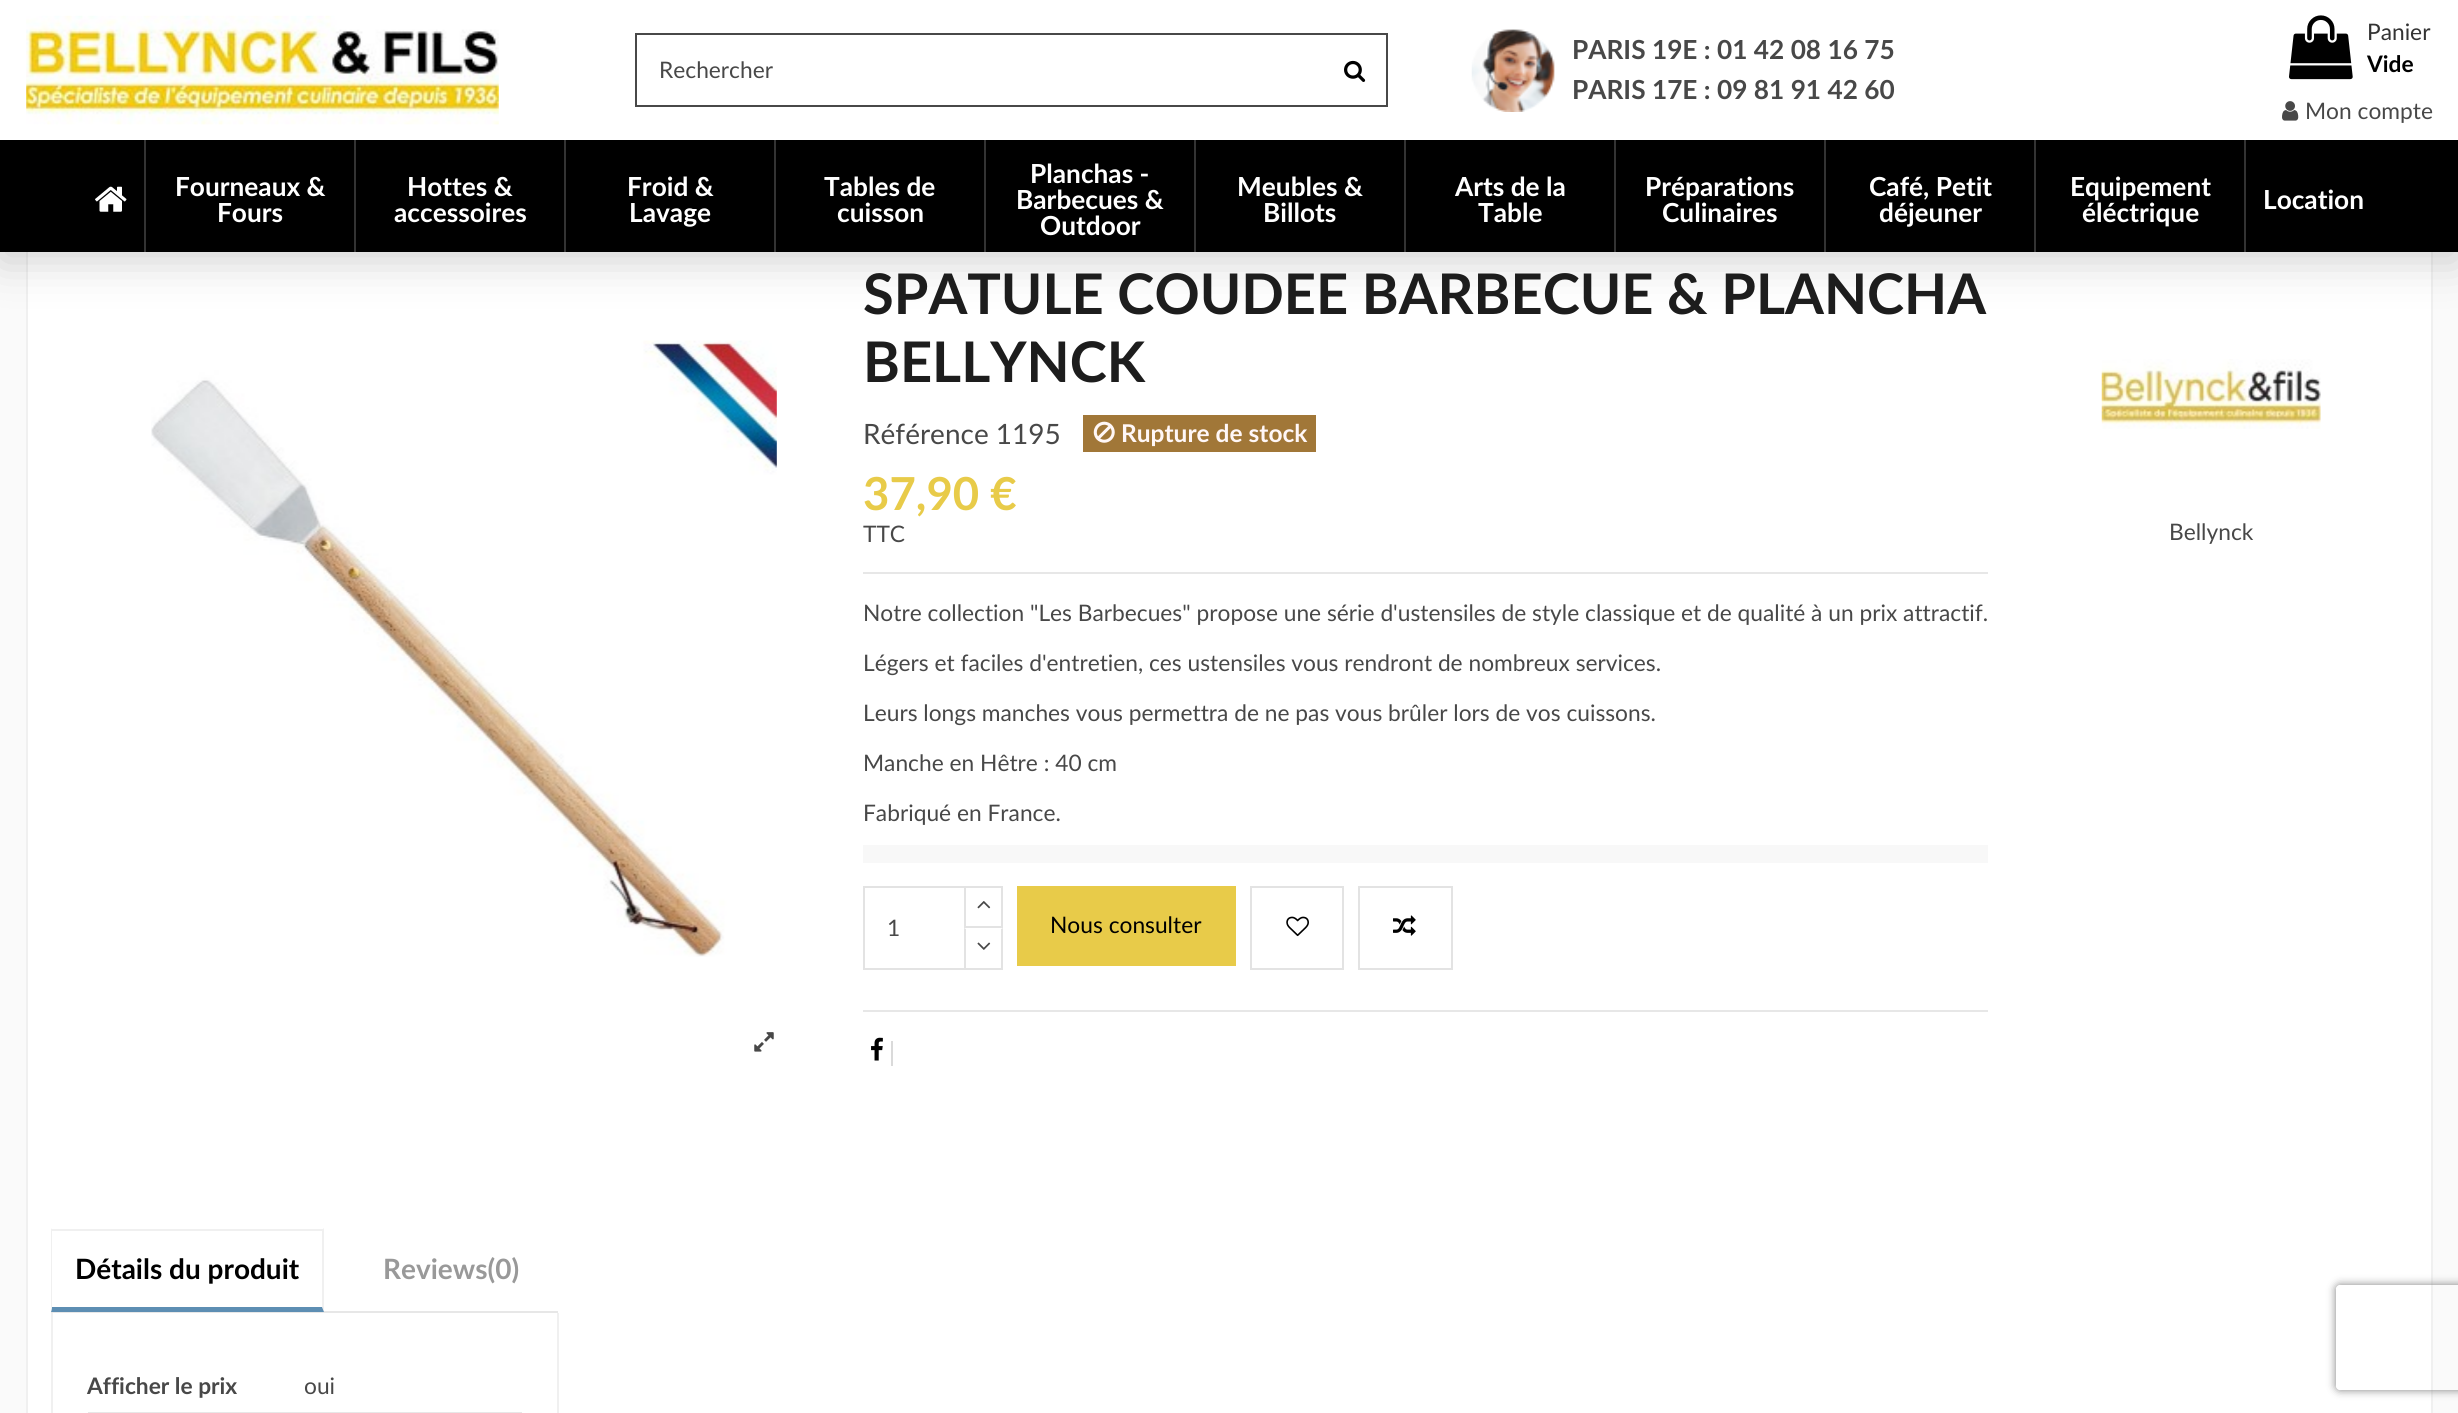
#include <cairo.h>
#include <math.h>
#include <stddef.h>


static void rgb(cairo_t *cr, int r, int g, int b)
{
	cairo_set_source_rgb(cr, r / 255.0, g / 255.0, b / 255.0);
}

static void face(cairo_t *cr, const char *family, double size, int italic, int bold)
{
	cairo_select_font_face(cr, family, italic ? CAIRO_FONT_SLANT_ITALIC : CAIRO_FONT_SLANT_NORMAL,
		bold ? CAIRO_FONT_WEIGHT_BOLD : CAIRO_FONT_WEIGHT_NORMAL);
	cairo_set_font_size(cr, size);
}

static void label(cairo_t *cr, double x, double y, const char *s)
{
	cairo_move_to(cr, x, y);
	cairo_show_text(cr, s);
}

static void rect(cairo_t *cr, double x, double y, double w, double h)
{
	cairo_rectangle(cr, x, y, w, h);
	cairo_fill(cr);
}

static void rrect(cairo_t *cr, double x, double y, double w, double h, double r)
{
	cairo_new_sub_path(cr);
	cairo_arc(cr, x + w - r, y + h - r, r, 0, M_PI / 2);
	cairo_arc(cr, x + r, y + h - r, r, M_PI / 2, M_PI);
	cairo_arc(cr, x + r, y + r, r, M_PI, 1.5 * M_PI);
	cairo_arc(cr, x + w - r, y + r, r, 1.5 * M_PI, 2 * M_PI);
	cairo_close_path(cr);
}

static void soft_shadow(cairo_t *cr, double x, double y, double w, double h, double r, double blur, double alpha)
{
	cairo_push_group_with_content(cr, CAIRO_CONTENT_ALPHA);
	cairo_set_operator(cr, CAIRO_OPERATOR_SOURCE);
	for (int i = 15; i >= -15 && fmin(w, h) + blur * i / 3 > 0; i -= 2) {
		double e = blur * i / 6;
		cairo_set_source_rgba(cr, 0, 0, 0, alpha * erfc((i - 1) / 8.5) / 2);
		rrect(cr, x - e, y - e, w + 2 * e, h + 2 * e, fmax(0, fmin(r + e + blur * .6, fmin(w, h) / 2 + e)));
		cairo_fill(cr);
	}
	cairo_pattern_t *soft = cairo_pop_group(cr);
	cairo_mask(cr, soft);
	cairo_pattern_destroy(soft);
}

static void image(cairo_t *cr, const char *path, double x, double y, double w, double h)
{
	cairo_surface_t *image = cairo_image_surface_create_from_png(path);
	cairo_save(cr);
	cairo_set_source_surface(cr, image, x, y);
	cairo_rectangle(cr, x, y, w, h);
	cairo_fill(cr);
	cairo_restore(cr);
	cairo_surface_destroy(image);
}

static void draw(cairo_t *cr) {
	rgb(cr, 250, 250, 250);
	cairo_paint(cr);
	rgb(cr, 255, 255, 255);
	rect(cr, 28, 252, 2403, 1161);
	cairo_rectangle(cr, 27, 215, 2405, 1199);
	rgb(cr, 240, 240, 240);
	cairo_stroke(cr);
	rgb(cr, 0, 0, 0);
	soft_shadow(cr, 0, 9, 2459, 252, 0, 22, 0.18);
	rgb(cr, 255, 255, 255);
	rect(cr, 0, 0, 2458, 140);
	image(cr, "image0.png", 26, 15, 473, 110);
	cairo_rectangle(cr, 636, 34, 751, 72);
	rgb(cr, 72, 72, 72);
	cairo_stroke(cr);
	face(cr, "Lato", 22.75, 0, 0);
	label(cr, 659, 78, "Rechercher");
	image(cr, "image1.png", 1344, 60, 22, 22);
	image(cr, "image2.png", 1471, 29, 84, 83);
	face(cr, "Lato", 26.25, 0, 1);
	label(cr, 1572, 59, "PARIS 19E : 01 42 08 16 75");
	label(cr, 1572, 99, "PARIS 17E : 09 81 91 42 60");
	image(cr, "image3.png", 2289, 15, 64, 65);
	face(cr, "Lato", 22.75, 0, 0);
	rgb(cr, 51, 51, 51);
	label(cr, 2367, 40, "Panier");
	face(cr, "Lato", 22.75, 0, 1);
	rgb(cr, 0, 0, 0);
	label(cr, 2367, 72, "Vide");
	image(cr, "image4.png", 2282, 101, 17, 20);
	face(cr, "Lato", 22.75, 0, 0);
	rgb(cr, 72, 72, 72);
	label(cr, 2305, 119, "Mon compte");
	rgb(cr, 0, 0, 0);
	rect(cr, 0, 140, 2458, 112);
	image(cr, "image5.png", 95, 186, 32, 26);
	rgb(cr, 51, 51, 51);
	rect(cr, 144, 140, 2, 112);
	face(cr, "Lato", 26.25, 0, 1);
	rgb(cr, 255, 255, 255);
	label(cr, 175, 196, "Fourneaux &");
	label(cr, 217, 222, "Fours");
	rgb(cr, 51, 51, 51);
	rect(cr, 354, 140, 2, 112);
	rgb(cr, 255, 255, 255);
	label(cr, 407, 196, "Hottes &");
	label(cr, 394, 222, "accessoires");
	rgb(cr, 51, 51, 51);
	rect(cr, 564, 140, 2, 112);
	rgb(cr, 255, 255, 255);
	label(cr, 627, 196, "Froid &");
	label(cr, 629, 222, "Lavage");
	rgb(cr, 51, 51, 51);
	rect(cr, 774, 140, 2, 112);
	rgb(cr, 255, 255, 255);
	label(cr, 824, 196, "Tables de");
	label(cr, 837, 222, "cuisson");
	rgb(cr, 51, 51, 51);
	rect(cr, 984, 140, 2, 112);
	rgb(cr, 255, 255, 255);
	label(cr, 1030, 183, "Planchas -");
	label(cr, 1016, 209, "Barbecues &");
	label(cr, 1040, 235, "Outdoor");
	rgb(cr, 51, 51, 51);
	rect(cr, 1194, 140, 2, 112);
	rgb(cr, 255, 255, 255);
	label(cr, 1237, 196, "Meubles &");
	label(cr, 1263, 222, "Billots");
	rgb(cr, 51, 51, 51);
	rect(cr, 1404, 140, 2, 112);
	rgb(cr, 255, 255, 255);
	label(cr, 1455, 196, "Arts de la");
	label(cr, 1478, 222, "Table");
	rgb(cr, 51, 51, 51);
	rect(cr, 1614, 140, 2, 112);
	rgb(cr, 255, 255, 255);
	label(cr, 1645, 196, "Préparations");
	label(cr, 1662, 222, "Culinaires");
	rgb(cr, 51, 51, 51);
	rect(cr, 1824, 140, 2, 112);
	rgb(cr, 255, 255, 255);
	label(cr, 1869, 196, "Café, Petit");
	label(cr, 1879, 222, "déjeuner");
	rgb(cr, 51, 51, 51);
	rect(cr, 2034, 140, 2, 112);
	rgb(cr, 255, 255, 255);
	label(cr, 2070, 196, "Equipement");
	label(cr, 2082, 222, "éléctrique");
	rgb(cr, 51, 51, 51);
	rect(cr, 2244, 140, 2, 112);
	rgb(cr, 255, 255, 255);
	label(cr, 2263, 209, "Location");
	image(cr, "image6.png", 151, 340, 626, 617);
	image(cr, "image7.png", 754, 1032, 20, 20);
	rgb(cr, 231, 231, 231);
	rect(cr, 863, 572, 1125, 2);
	face(cr, "Lato", 56, 0, 1);
	rgb(cr, 29, 29, 29);
	label(cr, 863, 314, "SPATULE COUDEE BARBECUE & PLANCHA");
	label(cr, 863, 382, "BELLYNCK");
	face(cr, "Lato", 28, 0, 0);
	rgb(cr, 72, 72, 72);
	label(cr, 863, 444, "Référence 1195");
	rgb(cr, 161, 119, 56);
	rect(cr, 1083, 415, 233, 37);
	image(cr, "image8.png", 1093, 421, 22, 22);
	face(cr, "Lato", 24.5, 0, 1);
	rgb(cr, 255, 247, 247);
	label(cr, 1121, 442, "Rupture de stock");
	face(cr, "Lato", 45.5, 0, 1);
	rgb(cr, 232, 203, 73);
	label(cr, 863, 510, "37,90 €");
	face(cr, "Lato", 22.75, 0, 0);
	rgb(cr, 72, 72, 72);
	label(cr, 863, 542, "TTC");
	label(cr, 863, 621, "Notre collection \"Les Barbecues\" propose une série d'ustensiles de style classique et de qualité à un prix attractif.");
	label(cr, 863, 671, "Légers et faciles d'entretien, ces ustensiles vous rendront de nombreux services.");
	label(cr, 863, 721, "Leurs longs manches vous permettra de ne pas vous brûler lors de vos cuissons.");
	label(cr, 863, 771, "Manche en Hêtre : 40 cm");
	label(cr, 863, 821, "Fabriqué en France.");
	rgb(cr, 248, 248, 248);
	rect(cr, 863, 845, 1125, 18);
	cairo_rectangle(cr, 864, 887, 101, 82);
	rgb(cr, 227, 227, 227);
	cairo_stroke(cr);
	rgb(cr, 72, 72, 72);
	label(cr, 887, 936, "1");
	cairo_rectangle(cr, 965, 887, 37, 40);
	rgb(cr, 227, 227, 227);
	cairo_stroke(cr);
	image(cr, "image9.png", 977, 901, 14, 8);
	rgb(cr, 255, 255, 255);
	rect(cr, 964, 928, 2, 40);
	rgb(cr, 227, 227, 227);
	cairo_new_path(cr);
	cairo_move_to(cr, 1003, 928);
	cairo_line_to(cr, 1003, 970);
	cairo_line_to(cr, 1001, 968);
	cairo_line_to(cr, 1001, 929);
	cairo_close_path(cr);
	cairo_fill(cr);
	rect(cr, 964, 968, 39, 2);
	cairo_new_path(cr);
	cairo_move_to(cr, 964, 970);
	cairo_line_to(cr, 964, 928);
	cairo_line_to(cr, 966, 929);
	cairo_line_to(cr, 966, 968);
	cairo_close_path(cr);
	cairo_fill(cr);
	image(cr, "image10.png", 977, 942, 14, 8);
	rgb(cr, 232, 203, 73);
	rect(cr, 1017, 886, 219, 80);
	rgb(cr, 0, 0, 0);
	label(cr, 1050, 933, "Nous consulter");
	cairo_rectangle(cr, 1251, 887, 92, 82);
	rgb(cr, 227, 227, 227);
	cairo_stroke(cr);
	image(cr, "image11.png", 1286, 916, 23, 21);
	cairo_rectangle(cr, 1359, 887, 93, 82);
	cairo_stroke(cr);
	image(cr, "image12.png", 1393, 915, 23, 21);
	rgb(cr, 231, 231, 231);
	rect(cr, 863, 1010, 1125, 2);
	image(cr, "image13.png", 871, 1037, 12, 24);
	rgb(cr, 218, 218, 218);
	rect(cr, 891, 1041, 2, 25);
	image(cr, "image14.png", 2101, 359, 220, 70);
	rgb(cr, 72, 72, 72);
	label(cr, 2169, 540, "Bellynck");
	rgb(cr, 231, 231, 231);
	rect(cr, 51, 1311, 507, 2);
	rgb(cr, 240, 240, 240);
	rect(cr, 51, 1229, 273, 2);
	cairo_new_path(cr);
	cairo_move_to(cr, 324, 1228);
	cairo_line_to(cr, 324, 1312);
	cairo_line_to(cr, 322, 1307);
	cairo_line_to(cr, 322, 1230);
	cairo_close_path(cr);
	cairo_fill(cr);
	rgb(cr, 93, 142, 179);
	cairo_new_path(cr);
	cairo_move_to(cr, 324, 1312);
	cairo_line_to(cr, 51, 1312);
	cairo_line_to(cr, 52, 1307);
	cairo_line_to(cr, 322, 1307);
	cairo_close_path(cr);
	cairo_fill(cr);
	rgb(cr, 240, 240, 240);
	cairo_new_path(cr);
	cairo_move_to(cr, 51, 1312);
	cairo_line_to(cr, 51, 1228);
	cairo_line_to(cr, 52, 1230);
	cairo_line_to(cr, 52, 1307);
	cairo_close_path(cr);
	cairo_fill(cr);
	face(cr, "Lato", 28, 0, 1);
	rgb(cr, 0, 0, 0);
	label(cr, 75, 1279, "Détails du produit");
	rgb(cr, 153, 153, 153);
	label(cr, 383, 1279, "Reviews(0)");
	rgb(cr, 240, 240, 240);
	rect(cr, 557, 1313, 2, 100);
	rect(cr, 51, 1313, 2, 100);
	rgb(cr, 231, 231, 231);
	rect(cr, 88, 1412, 434, 1);
	face(cr, "Lato", 22.75, 0, 1);
	rgb(cr, 72, 72, 72);
	label(cr, 87, 1394, "Afficher le prix");
	face(cr, "Lato", 22.75, 0, 0);
	label(cr, 304, 1394, "oui");
	cairo_save(cr);
	cairo_set_fill_rule(cr, CAIRO_FILL_RULE_EVEN_ODD);
	cairo_new_path(cr);
	cairo_move_to(cr, 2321, 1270);
	cairo_line_to(cr, 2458, 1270);
	cairo_line_to(cr, 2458, 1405);
	cairo_line_to(cr, 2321, 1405);
	cairo_close_path(cr);
	cairo_move_to(cr, 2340, 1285);
	cairo_line_to(cr, 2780, 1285);
	cairo_curve_to(cr, 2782, 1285, 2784, 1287, 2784, 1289);
	cairo_line_to(cr, 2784, 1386);
	cairo_curve_to(cr, 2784, 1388, 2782, 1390, 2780, 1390);
	cairo_line_to(cr, 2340, 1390);
	cairo_curve_to(cr, 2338, 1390, 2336, 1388, 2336, 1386);
	cairo_line_to(cr, 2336, 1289);
	cairo_curve_to(cr, 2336, 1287, 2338, 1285, 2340, 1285);
	cairo_close_path(cr);
	cairo_clip(cr);
	rgb(cr, 128, 128, 128);
	soft_shadow(cr, 2336, 1285, 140, 105, 4, 4.5, 1);
	cairo_restore(cr);
}

int main(void) {
	cairo_surface_t *surface = cairo_image_surface_create(CAIRO_FORMAT_RGB24, 2458, 1413);
	cairo_t *cr = cairo_create(surface);
	cairo_font_options_t *options = cairo_font_options_create();
	cairo_font_options_set_hint_metrics(options, CAIRO_HINT_METRICS_OFF);
	cairo_font_options_set_hint_style(options, CAIRO_HINT_STYLE_NONE);
	cairo_set_font_options(cr, options);
	cairo_set_miter_limit(cr, 4);
	draw(cr);
	cairo_surface_write_to_png(surface, "render.png");
	cairo_font_options_destroy(options);
	cairo_destroy(cr);
	cairo_surface_destroy(surface);
	return 0;
}
